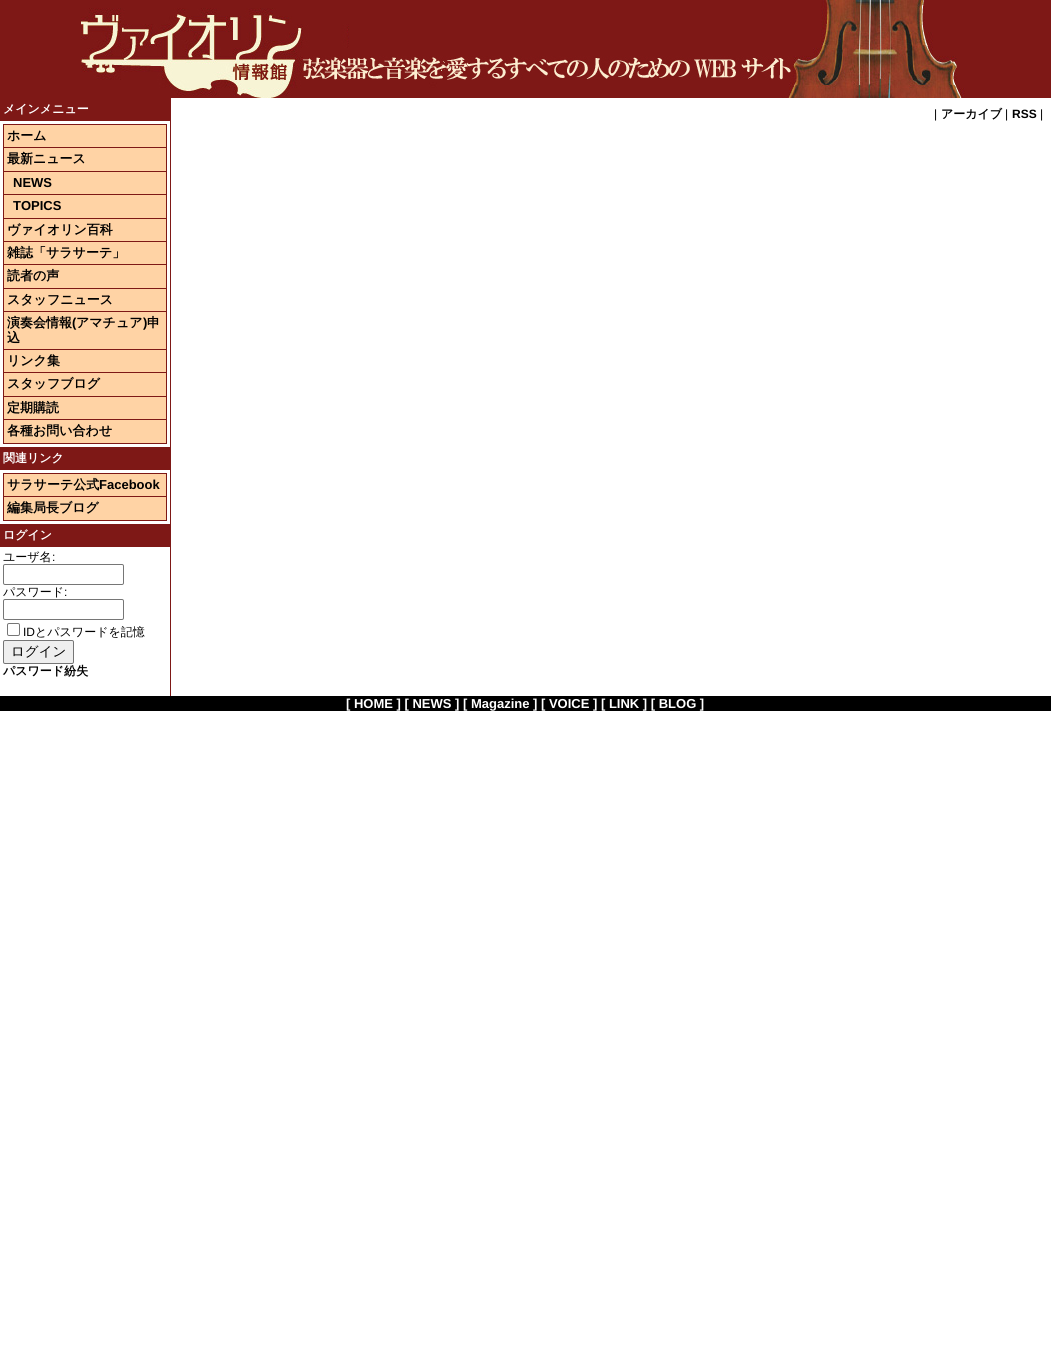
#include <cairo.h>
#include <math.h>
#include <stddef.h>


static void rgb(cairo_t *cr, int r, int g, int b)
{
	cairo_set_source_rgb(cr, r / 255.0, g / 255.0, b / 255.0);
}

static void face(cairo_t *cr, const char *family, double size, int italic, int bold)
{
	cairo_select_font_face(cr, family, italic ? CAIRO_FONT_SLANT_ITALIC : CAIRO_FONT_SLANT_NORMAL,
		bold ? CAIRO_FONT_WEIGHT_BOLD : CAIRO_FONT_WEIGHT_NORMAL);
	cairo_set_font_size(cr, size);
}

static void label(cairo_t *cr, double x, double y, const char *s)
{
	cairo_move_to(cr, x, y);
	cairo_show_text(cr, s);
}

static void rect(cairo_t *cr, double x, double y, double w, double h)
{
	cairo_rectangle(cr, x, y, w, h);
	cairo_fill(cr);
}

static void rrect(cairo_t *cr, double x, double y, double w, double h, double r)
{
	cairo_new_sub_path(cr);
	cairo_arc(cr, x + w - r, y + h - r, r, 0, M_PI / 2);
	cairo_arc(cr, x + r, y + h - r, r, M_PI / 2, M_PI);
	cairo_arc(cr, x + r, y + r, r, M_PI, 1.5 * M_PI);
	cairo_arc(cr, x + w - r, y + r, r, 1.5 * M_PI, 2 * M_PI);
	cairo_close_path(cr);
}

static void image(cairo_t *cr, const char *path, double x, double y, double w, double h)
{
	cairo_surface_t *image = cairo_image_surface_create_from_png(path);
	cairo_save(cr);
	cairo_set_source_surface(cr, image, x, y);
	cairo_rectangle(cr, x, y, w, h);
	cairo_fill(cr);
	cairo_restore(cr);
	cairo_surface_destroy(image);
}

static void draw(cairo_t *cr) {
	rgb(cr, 255, 255, 255);
	cairo_paint(cr);
	rgb(cr, 126, 24, 22);
	rect(cr, 0, 0, 1051, 98);
	image(cr, "image0.png", 81, 0, 884, 98);
	rect(cr, 170, 98, 1, 598);
	rect(cr, 0, 98, 170, 23);
	face(cr, "WenQuanYi Zen Hei", 12, 0, 1);
	rgb(cr, 255, 255, 255);
	label(cr, 3, 113, "メインメニュー");
	rgb(cr, 255, 211, 165);
	cairo_rectangle(cr, 3.5, 124.5, 163, 23);
	cairo_fill_preserve(cr);
	rgb(cr, 126, 24, 22);
	cairo_set_line_width(cr, 1);
	cairo_stroke(cr);
	face(cr, "WenQuanYi Zen Hei", 13, 0, 1);
	rgb(cr, 0, 0, 0);
	label(cr, 7, 140, "ホーム");
	rgb(cr, 255, 211, 165);
	rect(cr, 4, 148, 162, 23);
	rgb(cr, 126, 24, 22);
	rect(cr, 166, 148, 1, 296);
	rect(cr, 3, 171, 164, 1);
	rect(cr, 3, 148, 1, 24);
	rgb(cr, 0, 0, 0);
	label(cr, 7, 163, "最新ニュース");
	rgb(cr, 255, 211, 165);
	rect(cr, 4, 172, 162, 22);
	rgb(cr, 126, 24, 22);
	rect(cr, 3, 194, 164, 1);
	rect(cr, 3, 172, 1, 23);
	face(cr, "Liberation Sans", 13, 0, 1);
	rgb(cr, 0, 0, 0);
	label(cr, 13, 187, "NEWS");
	rgb(cr, 255, 211, 165);
	rect(cr, 4, 195, 162, 23);
	rgb(cr, 126, 24, 22);
	rect(cr, 3, 218, 164, 1);
	rect(cr, 3, 195, 1, 24);
	rgb(cr, 0, 0, 0);
	label(cr, 13, 210, "TOPICS");
	rgb(cr, 255, 211, 165);
	rect(cr, 4, 219, 162, 22);
	rgb(cr, 126, 24, 22);
	rect(cr, 3, 241, 164, 1);
	rect(cr, 3, 219, 1, 23);
	face(cr, "WenQuanYi Zen Hei", 13, 0, 1);
	rgb(cr, 0, 0, 0);
	label(cr, 7, 234, "ヴァイオリン百科");
	rgb(cr, 255, 211, 165);
	rect(cr, 4, 242, 162, 22);
	rgb(cr, 126, 24, 22);
	rect(cr, 3, 264, 164, 1);
	rect(cr, 3, 242, 1, 23);
	rgb(cr, 0, 0, 0);
	label(cr, 7, 257, "雑誌「サラサーテ」");
	rgb(cr, 255, 211, 165);
	rect(cr, 4, 265, 162, 23);
	rgb(cr, 126, 24, 22);
	rect(cr, 3, 288, 164, 1);
	rect(cr, 3, 265, 1, 24);
	rgb(cr, 0, 0, 0);
	label(cr, 7, 280, "読者の声");
	rgb(cr, 255, 211, 165);
	rect(cr, 4, 289, 162, 22);
	rgb(cr, 126, 24, 22);
	rect(cr, 3, 311, 164, 1);
	rect(cr, 3, 289, 1, 23);
	rgb(cr, 0, 0, 0);
	label(cr, 7, 304, "スタッフニュース");
	rgb(cr, 255, 211, 165);
	rect(cr, 4, 312, 162, 37);
	rgb(cr, 126, 24, 22);
	rect(cr, 3, 349, 164, 1);
	rect(cr, 3, 312, 1, 38);
	rgb(cr, 0, 0, 0);
	label(cr, 7, 327, "演奏会情報");
	face(cr, "Liberation Sans", 13, 0, 1);
	label(cr, 72, 327, "(");
	face(cr, "WenQuanYi Zen Hei", 13, 0, 1);
	label(cr, 76, 327, "アマチュア");
	face(cr, "Liberation Sans", 13, 0, 1);
	label(cr, 143, 327, ")");
	face(cr, "WenQuanYi Zen Hei", 13, 0, 1);
	label(cr, 147, 327, "申");
	label(cr, 7, 342, "込");
	rgb(cr, 255, 211, 165);
	rect(cr, 4, 350, 162, 22);
	rgb(cr, 126, 24, 22);
	rect(cr, 3, 372, 164, 1);
	rect(cr, 3, 350, 1, 23);
	rgb(cr, 0, 0, 0);
	label(cr, 7, 365, "リンク集");
	rgb(cr, 255, 211, 165);
	rect(cr, 4, 373, 162, 23);
	rgb(cr, 126, 24, 22);
	rect(cr, 3, 396, 164, 1);
	rect(cr, 3, 373, 1, 24);
	rgb(cr, 0, 0, 0);
	label(cr, 7, 388, "スタッフブログ");
	rgb(cr, 255, 211, 165);
	rect(cr, 4, 397, 162, 22);
	rgb(cr, 126, 24, 22);
	rect(cr, 3, 419, 164, 1);
	rect(cr, 3, 397, 1, 23);
	rgb(cr, 0, 0, 0);
	label(cr, 7, 412, "定期購読");
	rgb(cr, 255, 211, 165);
	rect(cr, 4, 420, 162, 23);
	rgb(cr, 126, 24, 22);
	rect(cr, 3, 443, 164, 1);
	rect(cr, 3, 420, 1, 24);
	rgb(cr, 0, 0, 0);
	label(cr, 7, 435, "各種お問い合わせ");
	rgb(cr, 126, 24, 22);
	rect(cr, 0, 447, 170, 23);
	face(cr, "WenQuanYi Zen Hei", 12, 0, 1);
	rgb(cr, 255, 255, 255);
	label(cr, 3, 462, "関連リンク");
	rgb(cr, 255, 211, 165);
	cairo_rectangle(cr, 3.5, 473.5, 163, 23);
	cairo_fill_preserve(cr);
	rgb(cr, 126, 24, 22);
	cairo_stroke(cr);
	face(cr, "WenQuanYi Zen Hei", 13, 0, 1);
	rgb(cr, 0, 0, 0);
	label(cr, 7, 489, "サラサーテ公式");
	face(cr, "Liberation Sans", 13, 0, 1);
	label(cr, 99, 489, "Facebook");
	rgb(cr, 255, 211, 165);
	rect(cr, 4, 497, 162, 23);
	rgb(cr, 126, 24, 22);
	rect(cr, 166, 497, 1, 24);
	rect(cr, 3, 520, 164, 1);
	rect(cr, 3, 497, 1, 24);
	face(cr, "WenQuanYi Zen Hei", 13, 0, 1);
	rgb(cr, 0, 0, 0);
	label(cr, 7, 512, "編集局長ブログ");
	rgb(cr, 126, 24, 22);
	rect(cr, 0, 524, 170, 23);
	face(cr, "WenQuanYi Zen Hei", 12, 0, 1);
	rgb(cr, 255, 255, 255);
	label(cr, 3, 539, "ログイン");
	face(cr, "WenQuanYi Zen Hei Medium", 12, 0, 0);
	rgb(cr, 0, 0, 0);
	label(cr, 3, 561, "ユーザ名");
	face(cr, "Liberation Sans", 12, 0, 0);
	label(cr, 52, 561, ":");
	rrect(cr, 3.5, 564.5, 120, 20, 1.5);
	rgb(cr, 118, 118, 118);
	cairo_stroke(cr);
	face(cr, "WenQuanYi Zen Hei Medium", 12, 0, 0);
	rgb(cr, 0, 0, 0);
	label(cr, 3, 596, "パスワード");
	face(cr, "Liberation Sans", 12, 0, 0);
	label(cr, 64, 596, ":");
	rrect(cr, 3.5, 599.5, 120, 20, 1.5);
	rgb(cr, 118, 118, 118);
	cairo_stroke(cr);
	rrect(cr, 7.5, 623.5, 12, 12, 1.5);
	cairo_stroke(cr);
	rgb(cr, 0, 0, 0);
	label(cr, 23, 636, "ID");
	face(cr, "WenQuanYi Zen Hei Medium", 12, 0, 0);
	label(cr, 35, 636, "とパスワードを記憶");
	rgb(cr, 239, 239, 239);
	rrect(cr, 3.5, 640.5, 70, 23, 1.5);
	cairo_fill_preserve(cr);
	rgb(cr, 118, 118, 118);
	cairo_stroke(cr);
	face(cr, "WenQuanYi Zen Hei Medium", 13.5, 0, 0);
	rgb(cr, 0, 0, 0);
	label(cr, 11, 656, "ログイン");
	face(cr, "WenQuanYi Zen Hei", 12, 0, 1);
	label(cr, 3, 675, "パスワード紛失");
	face(cr, "Liberation Sans", 12, 0, 0);
	label(cr, 934, 118, "|");
	face(cr, "WenQuanYi Zen Hei", 12, 0, 1);
	label(cr, 941, 118, "アーカイブ");
	face(cr, "Liberation Sans", 12, 0, 0);
	label(cr, 1005, 118, "|");
	face(cr, "Liberation Sans", 12, 0, 1);
	label(cr, 1012, 118, "RSS");
	face(cr, "Liberation Sans", 12, 0, 0);
	label(cr, 1040, 118, "|");
	rect(cr, 0, 696, 1051, 15);
	face(cr, "Liberation Sans", 13, 0, 1);
	rgb(cr, 255, 255, 255);
	label(cr, 346, 708, "[ HOME ] [ NEWS ] [ Magazine ] [ VOICE ] [ LINK ] [ BLOG ]");
}

int main(void) {
	cairo_surface_t *surface = cairo_image_surface_create(CAIRO_FORMAT_RGB24, 1051, 1351);
	cairo_t *cr = cairo_create(surface);
	cairo_font_options_t *options = cairo_font_options_create();
	cairo_font_options_set_hint_metrics(options, CAIRO_HINT_METRICS_OFF);
	cairo_font_options_set_hint_style(options, CAIRO_HINT_STYLE_NONE);
	cairo_set_font_options(cr, options);
	cairo_set_miter_limit(cr, 4);
	draw(cr);
	cairo_surface_write_to_png(surface, "render.png");
	cairo_font_options_destroy(options);
	cairo_destroy(cr);
	cairo_surface_destroy(surface);
	return 0;
}
